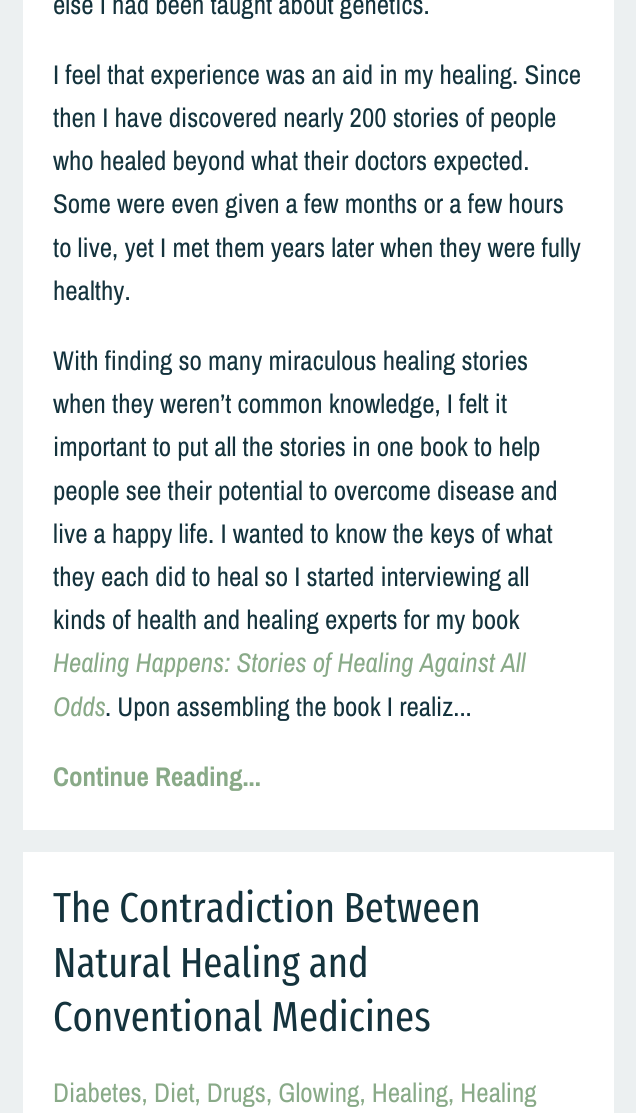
#include <cairo.h>
#include <math.h>
#include <stddef.h>


static void rgb(cairo_t *cr, int r, int g, int b)
{
	cairo_set_source_rgb(cr, r / 255.0, g / 255.0, b / 255.0);
}

static void face(cairo_t *cr, const char *family, double size, int italic, int bold)
{
	cairo_select_font_face(cr, family, italic ? CAIRO_FONT_SLANT_ITALIC : CAIRO_FONT_SLANT_NORMAL,
		bold ? CAIRO_FONT_WEIGHT_BOLD : CAIRO_FONT_WEIGHT_NORMAL);
	cairo_set_font_size(cr, size);
}

static void label(cairo_t *cr, double x, double y, const char *s)
{
	cairo_move_to(cr, x, y);
	cairo_show_text(cr, s);
}

static void rect(cairo_t *cr, double x, double y, double w, double h)
{
	cairo_rectangle(cr, x, y, w, h);
	cairo_fill(cr);
}

static void draw(cairo_t *cr) {
	rgb(cr, 236, 240, 241);
	cairo_paint(cr);
	rgb(cr, 255, 255, 255);
	rect(cr, 23, 0, 591, 830);
	face(cr, "Archivo Narrow", 27, 0, 0);
	rgb(cr, 20, 51, 61);
	label(cr, 53, 14, "else I had been taught about genetics.");
	label(cr, 53, 84, "I feel that experience was an aid in my healing. Since");
	label(cr, 53, 127, "then I have discovered nearly 200 stories of people");
	label(cr, 53, 170, "who healed beyond what their doctors expected.");
	label(cr, 53, 213, "Some were even given a few months or a few hours");
	label(cr, 53, 257, "to live, yet I met them years later when they were fully");
	label(cr, 53, 300, "healthy.");
	label(cr, 53, 370, "With finding so many miraculous healing stories");
	label(cr, 53, 413, "when they weren’t common knowledge, I felt it");
	label(cr, 53, 456, "important to put all the stories in one book to help");
	label(cr, 53, 500, "people see their potential to overcome disease and");
	label(cr, 53, 543, "live a happy life. I wanted to know the keys of what");
	label(cr, 53, 586, "they each did to heal so I started interviewing all");
	label(cr, 53, 629, "kinds of health and healing experts for my book");
	face(cr, "Archivo Narrow", 27, 1, 0);
	rgb(cr, 137, 170, 136);
	label(cr, 53, 672, "Healing Happens: Stories of Healing Against All");
	label(cr, 53, 716, "Odds");
	face(cr, "Archivo Narrow", 27, 0, 0);
	rgb(cr, 20, 51, 61);
	label(cr, 105, 716, ". Upon assembling the book I realiz...");
	face(cr, "Archivo Narrow", 27, 0, 1);
	rgb(cr, 137, 170, 136);
	label(cr, 53, 786, "Continue Reading...");
	rgb(cr, 255, 255, 255);
	rect(cr, 23, 852, 591, 261);
	face(cr, "Fira Sans Extra Condensed", 42, 0, 0);
	rgb(cr, 20, 51, 61);
	label(cr, 53, 922, "The Contradiction Between");
	label(cr, 53, 977, "Natural Healing and");
	label(cr, 53, 1031, "Conventional Medicines");
	face(cr, "Archivo Narrow", 27, 0, 0);
	rgb(cr, 137, 170, 136);
	label(cr, 53, 1102, "Diabetes, Diet, Drugs, Glowing, Healing, Healing");
}

int main(void) {
	cairo_surface_t *surface = cairo_image_surface_create(CAIRO_FORMAT_RGB24, 636, 1113);
	cairo_t *cr = cairo_create(surface);
	cairo_font_options_t *options = cairo_font_options_create();
	cairo_font_options_set_hint_metrics(options, CAIRO_HINT_METRICS_OFF);
	cairo_font_options_set_hint_style(options, CAIRO_HINT_STYLE_NONE);
	cairo_set_font_options(cr, options);
	cairo_set_miter_limit(cr, 4);
	draw(cr);
	cairo_surface_write_to_png(surface, "render.png");
	cairo_font_options_destroy(options);
	cairo_destroy(cr);
	cairo_surface_destroy(surface);
	return 0;
}
